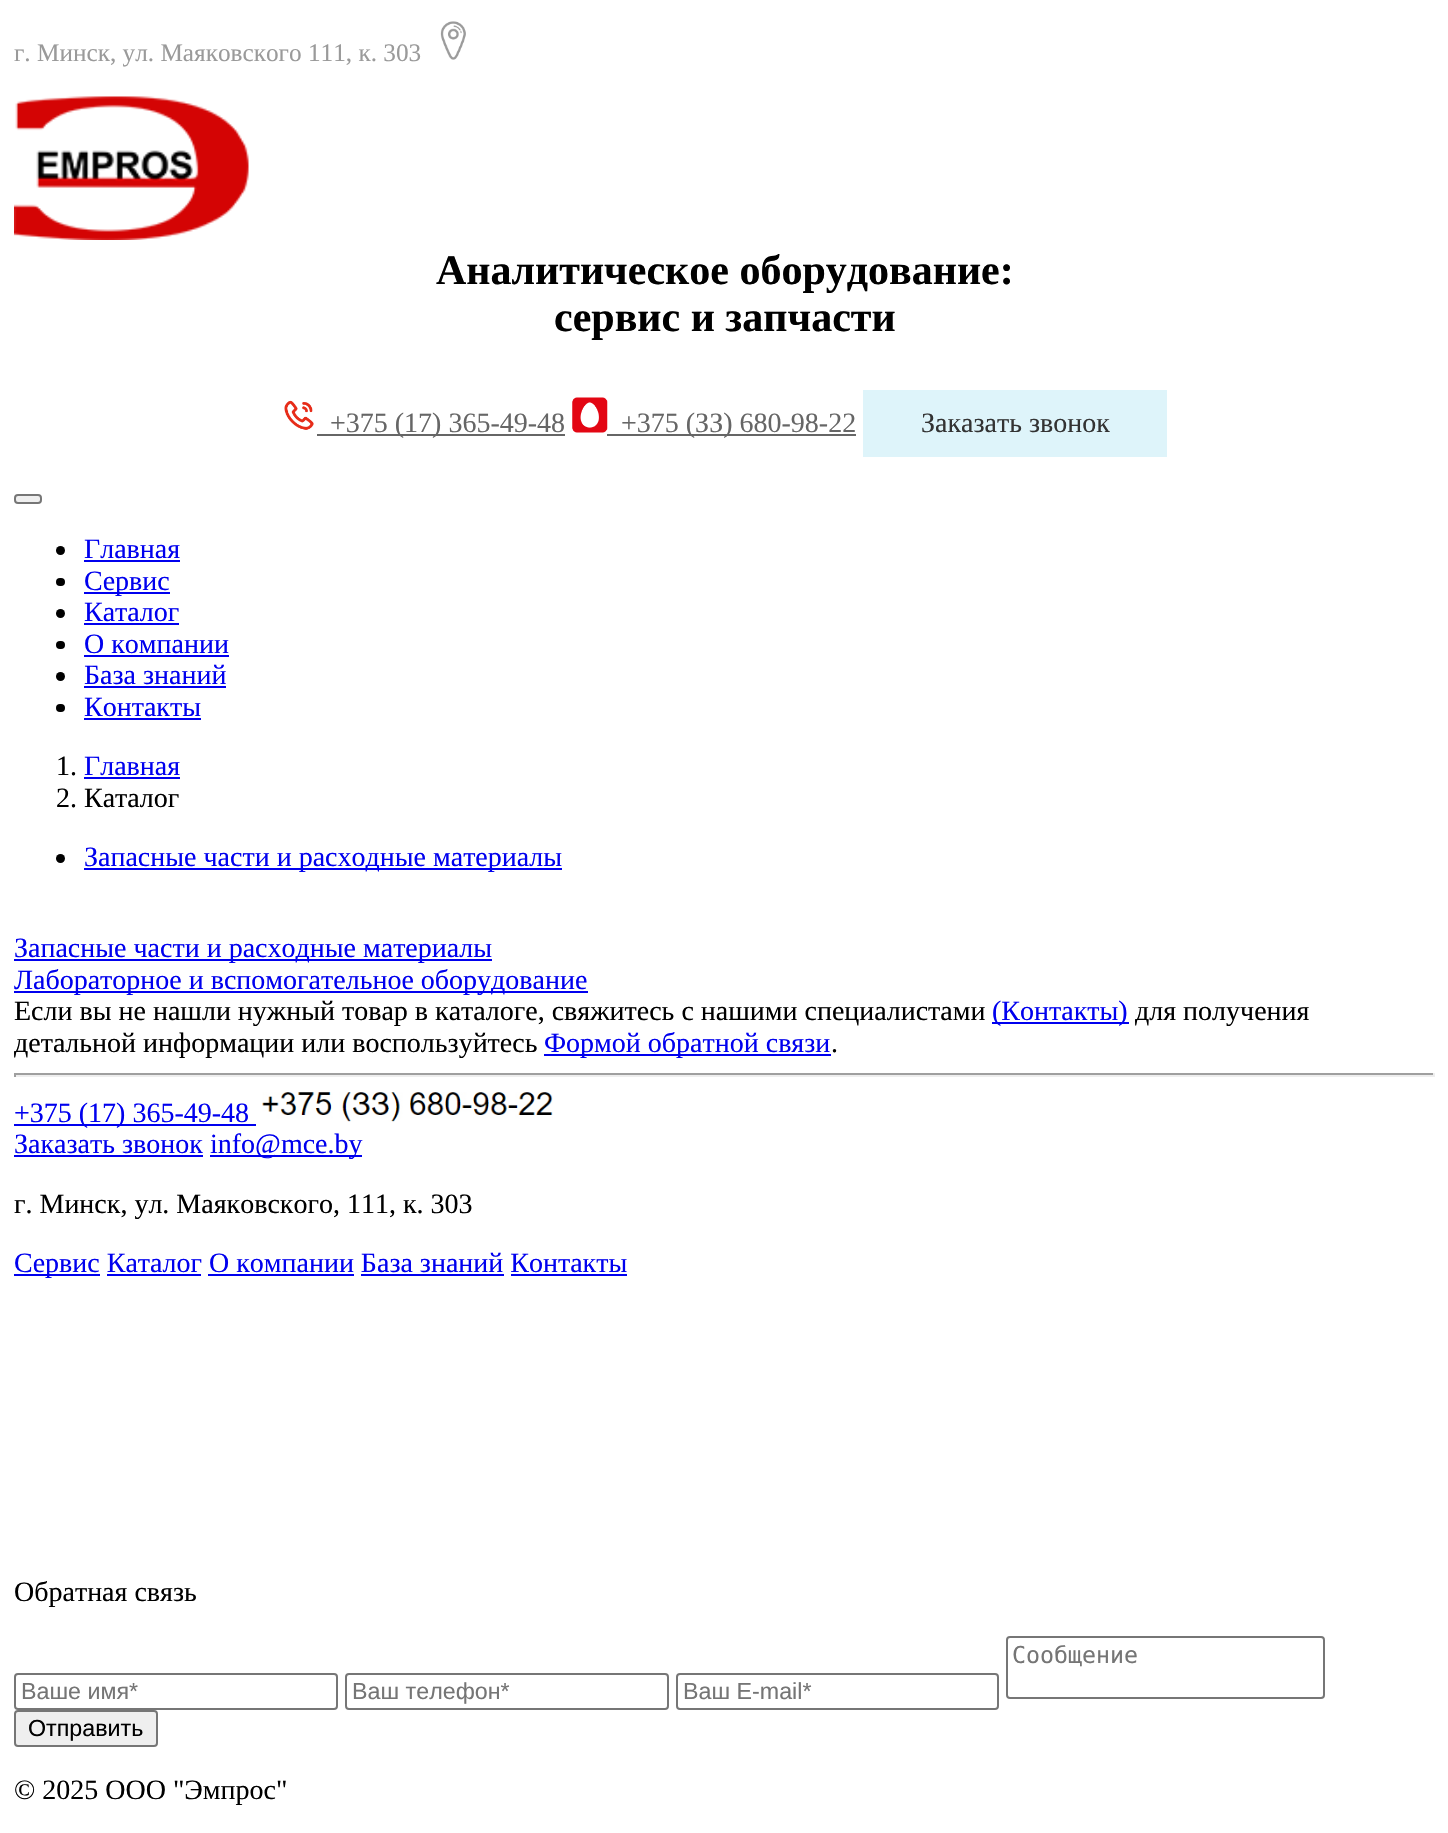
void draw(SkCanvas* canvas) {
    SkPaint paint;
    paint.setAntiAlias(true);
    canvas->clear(0xFFFFFFFF);
    SkFont font1(fontMgr->matchFamilyStyle("Liberation Serif", SkFontStyle::Normal()), 25.25f);
    font1.setSubpixel(true);
    paint.setColor(0xFF9A9A9A);
    canvas->drawString("г. Минск, ул. Маяковского 111, к. 303", 14, 61, font1, paint);
    canvas->drawImageRect(SkImages::DeferredFromEncodedData(SkData::MakeFromFileName("img1.png")), SkRect::MakeXYWH(440, 21, 26, 39), SkSamplingOptions());
    canvas->drawImageRect(SkImages::DeferredFromEncodedData(SkData::MakeFromFileName("img2.png")), SkRect::MakeXYWH(14, 96, 235, 144), SkSamplingOptions());
    SkFont font2(fontMgr->matchFamilyStyle("Liberation Serif", SkFontStyle::Bold()), 42);
    font2.setSubpixel(true);
    paint.setColor(0xFF000000);
    canvas->drawString("Аналитическое оборудование:", 436, 284, font2, paint);
    canvas->drawString("сервис и запчасти", 554, 331, font2, paint);
    canvas->drawImageRect(SkImages::DeferredFromEncodedData(SkData::MakeFromFileName("img3.png")), SkRect::MakeXYWH(284, 400, 30, 30), SkSamplingOptions());
    paint.setColor(0xFF666666);
    canvas->drawRect(SkRect::MakeXYWH(317, 434, 248, 2), paint);
    SkFont font3(fontMgr->matchFamilyStyle("Liberation Serif", SkFontStyle::Normal()), 28);
    font3.setSubpixel(true);
    canvas->drawString("+375 (17) 365-49-48", 330, 432, font3, paint);
    canvas->drawImageRect(SkImages::DeferredFromEncodedData(SkData::MakeFromFileName("img4.png")), SkRect::MakeXYWH(572, 397, 36, 36), SkSamplingOptions());
    canvas->drawRect(SkRect::MakeXYWH(607, 434, 249, 2), paint);
    canvas->drawString("+375 (ЗЗ) 680-98-22", 621, 432, font3, paint);
    paint.setColor(0xFFDEF4FA);
    canvas->drawRect(SkRect::MakeXYWH(863, 390, 304, 67), paint);
    paint.setColor(0xFF333333);
    canvas->drawString("Заказать звонок", 921, 432, font3, paint);
    paint.setColor(0xFFEFEFEF);
    canvas->drawRoundRect(SkRect::MakeXYWH(15, 495, 26, 8), 3, 3, paint);
    paint.setStyle(SkPaint::kStroke_Style);
    paint.setStrokeWidth(2);
    paint.setColor(0xFF767676);
    canvas->drawRoundRect(SkRect::MakeXYWH(15, 495, 26, 8), 3, 3, paint);
    paint.setStyle(SkPaint::kFill_Style);
    paint.setColor(0xFF000000);
    canvas->drawCircle(60.5f, 550.5f, 4.5f, paint);
    paint.setColor(0xFF0000EE);
    canvas->drawString("Главная", 84, 558, font3, paint);
    canvas->drawRect(SkRect::MakeXYWH(84, 560, 96, 2), paint);
    paint.setColor(0xFF000000);
    canvas->drawRoundRect(SkRect::MakeXYWH(56, 578, 9, 8), 4, 4, paint);
    paint.setColor(0xFF0000EE);
    canvas->drawRect(SkRect::MakeXYWH(84, 592, 86, 2), paint);
    canvas->drawString("Сервис", 84, 590, font3, paint);
    paint.setColor(0xFF000000);
    canvas->drawCircle(60.5f, 613.5f, 4.5f, paint);
    paint.setColor(0xFF0000EE);
    canvas->drawString("Каталог", 84, 621, font3, paint);
    canvas->drawRect(SkRect::MakeXYWH(84, 623, 95, 2), paint);
    paint.setColor(0xFF000000);
    canvas->drawRoundRect(SkRect::MakeXYWH(56, 641, 9, 8), 4, 4, paint);
    paint.setColor(0xFF0000EE);
    canvas->drawString("О компании", 84, 653, font3, paint);
    canvas->drawRect(SkRect::MakeXYWH(84, 655, 145, 2), paint);
    paint.setColor(0xFF000000);
    canvas->drawCircle(60.5f, 676.5f, 4.5f, paint);
    paint.setColor(0xFF0000EE);
    canvas->drawString("База знаний", 84, 684, font3, paint);
    canvas->drawRect(SkRect::MakeXYWH(84, 686, 142, 2), paint);
    paint.setColor(0xFF000000);
    canvas->drawRoundRect(SkRect::MakeXYWH(56, 704, 9, 8), 4, 4, paint);
    paint.setColor(0xFF0000EE);
    canvas->drawString("Контакты", 84, 716, font3, paint);
    canvas->drawRect(SkRect::MakeXYWH(84, 718, 117, 2), paint);
    paint.setColor(0xFF000000);
    canvas->drawString("1.", 56, 775, font3, paint);
    paint.setColor(0xFF0000EE);
    canvas->drawString("Главная", 84, 775, font3, paint);
    canvas->drawRect(SkRect::MakeXYWH(84, 777, 96, 2), paint);
    paint.setColor(0xFF000000);
    canvas->drawString("2. Каталог", 56, 807, font3, paint);
    canvas->drawCircle(60.5f, 858.5f, 4.5f, paint);
    paint.setColor(0xFF0000EE);
    canvas->drawRect(SkRect::MakeXYWH(84, 868, 478, 2), paint);
    canvas->drawString("Запасные части и расходные материалы", 84, 866, font3, paint);
    canvas->drawRect(SkRect::MakeXYWH(14, 959, 478, 2), paint);
    canvas->drawString("Запасные части и расходные материалы", 14, 957, font3, paint);
    canvas->drawRect(SkRect::MakeXYWH(14, 991, 574, 2), paint);
    canvas->drawString("Лабораторное и вспомогательное оборудование", 14, 989, font3, paint);
    paint.setColor(0xFF000000);
    canvas->drawString("Если вы не нашли нужный товар в каталоге, свяжитесь с нашими специалистами", 14, 1020, font3, paint);
    paint.setColor(0xFF0000EE);
    canvas->drawRect(SkRect::MakeXYWH(992, 1022, 137, 2), paint);
    canvas->drawString("(Контакты)", 992, 1020, font3, paint);
    paint.setColor(0xFF000000);
    canvas->drawString("для получения", 1135, 1020, font3, paint);
    canvas->drawString("детальной информации или воспользуйтесь", 14, 1052, font3, paint);
    paint.setColor(0xFF0000EE);
    canvas->drawRect(SkRect::MakeXYWH(544, 1054, 287, 2), paint);
    canvas->drawString("Формой обратной связи", 544, 1052, font3, paint);
    paint.setColor(0xFF000000);
    canvas->drawString(".", 831, 1052, font3, paint);
    paint.setColor(0xFF9F9F9F);
    canvas->drawRect(SkRect::MakeXYWH(14, 1073, 1421, 2), paint);
    paint.setColor(0xFFEEEEEE);
    canvas->drawRect(SkRect::MakeXYWH(1433, 1073, 2, 4), paint);
    canvas->drawRect(SkRect::MakeXYWH(14, 1075, 1421, 2), paint);
    paint.setColor(0xFF9F9F9F);
    canvas->drawRect(SkRect::MakeXYWH(14, 1073, 2, 4), paint);
    paint.setColor(0xFF0000EE);
    canvas->drawRect(SkRect::MakeXYWH(14, 1124, 242, 2), paint);
    canvas->drawString("+375 (17) 365-49-48", 14, 1122, font3, paint);
    canvas->drawImageRect(SkImages::DeferredFromEncodedData(SkData::MakeFromFileName("img5.png")), SkRect::MakeXYWH(262, 1092, 291, 30), SkSamplingOptions());
    canvas->drawString("Заказать звонок", 14, 1153, font3, paint);
    canvas->drawRect(SkRect::MakeXYWH(14, 1155, 189, 2), paint);
    canvas->drawRect(SkRect::MakeXYWH(210, 1155, 152, 2), paint);
    canvas->drawString("info@mce.by", 210, 1153, font3, paint);
    paint.setColor(0xFF000000);
    canvas->drawString("г. Минск, ул. Маяковского, 111, к. 303", 14, 1213, font3, paint);
    paint.setColor(0xFF0000EE);
    canvas->drawRect(SkRect::MakeXYWH(14, 1274, 86, 2), paint);
    canvas->drawString("Сервис Каталог О компании База знаний Контакты", 14, 1272, font3, paint);
    canvas->drawRect(SkRect::MakeXYWH(107, 1274, 94, 2), paint);
    canvas->drawRect(SkRect::MakeXYWH(208, 1274, 146, 2), paint);
    canvas->drawRect(SkRect::MakeXYWH(361, 1274, 143, 2), paint);
    canvas->drawRect(SkRect::MakeXYWH(511, 1274, 116, 2), paint);
    paint.setColor(0xFF000000);
    canvas->drawString("Обратная связь", 14, 1601, font3, paint);
    paint.setStyle(SkPaint::kStroke_Style);
    paint.setColor(0xFF767676);
    canvas->drawRoundRect(SkRect::MakeXYWH(1007, 1637, 317, 61), 3, 3, paint);
    SkFont font4(fontMgr->matchFamilyStyle("DejaVu Sans Mono", SkFontStyle::Normal()), 23.25f);
    font4.setSubpixel(true);
    paint.setStyle(SkPaint::kFill_Style);
    paint.setColor(0xFF757575);
    canvas->drawString("Сообщение", 1012, 1663, font4, paint);
    paint.setStyle(SkPaint::kStroke_Style);
    paint.setColor(0xFF767676);
    canvas->drawRoundRect(SkRect::MakeXYWH(15, 1674, 322, 35), 3, 3, paint);
    SkFont font5(fontMgr->matchFamilyStyle("Liberation Sans", SkFontStyle::Normal()), 23.25f);
    font5.setSubpixel(true);
    paint.setStyle(SkPaint::kFill_Style);
    paint.setColor(0xFF757575);
    canvas->drawString("Ваше имя*", 21, 1699, font5, paint);
    paint.setStyle(SkPaint::kStroke_Style);
    paint.setColor(0xFF767676);
    canvas->drawRoundRect(SkRect::MakeXYWH(346, 1674, 322, 35), 3, 3, paint);
    paint.setStyle(SkPaint::kFill_Style);
    paint.setColor(0xFF757575);
    canvas->drawString("Ваш телефон*", 352, 1699, font5, paint);
    paint.setStyle(SkPaint::kStroke_Style);
    paint.setColor(0xFF767676);
    canvas->drawRoundRect(SkRect::MakeXYWH(677, 1674, 321, 35), 3, 3, paint);
    paint.setStyle(SkPaint::kFill_Style);
    paint.setColor(0xFF757575);
    canvas->drawString("Ваш E-mail*", 683, 1699, font5, paint);
    paint.setColor(0xFFEFEFEF);
    canvas->drawRoundRect(SkRect::MakeXYWH(15, 1711, 142, 35), 3, 3, paint);
    paint.setStyle(SkPaint::kStroke_Style);
    paint.setColor(0xFF767676);
    canvas->drawRoundRect(SkRect::MakeXYWH(15, 1711, 142, 35), 3, 3, paint);
    paint.setStyle(SkPaint::kFill_Style);
    paint.setColor(0xFF000000);
    canvas->drawString("Отправить", 28, 1736, font5, paint);
    canvas->drawString("© 2025 ООО \"Эмпрос\"", 14, 1799, font3, paint);
}
